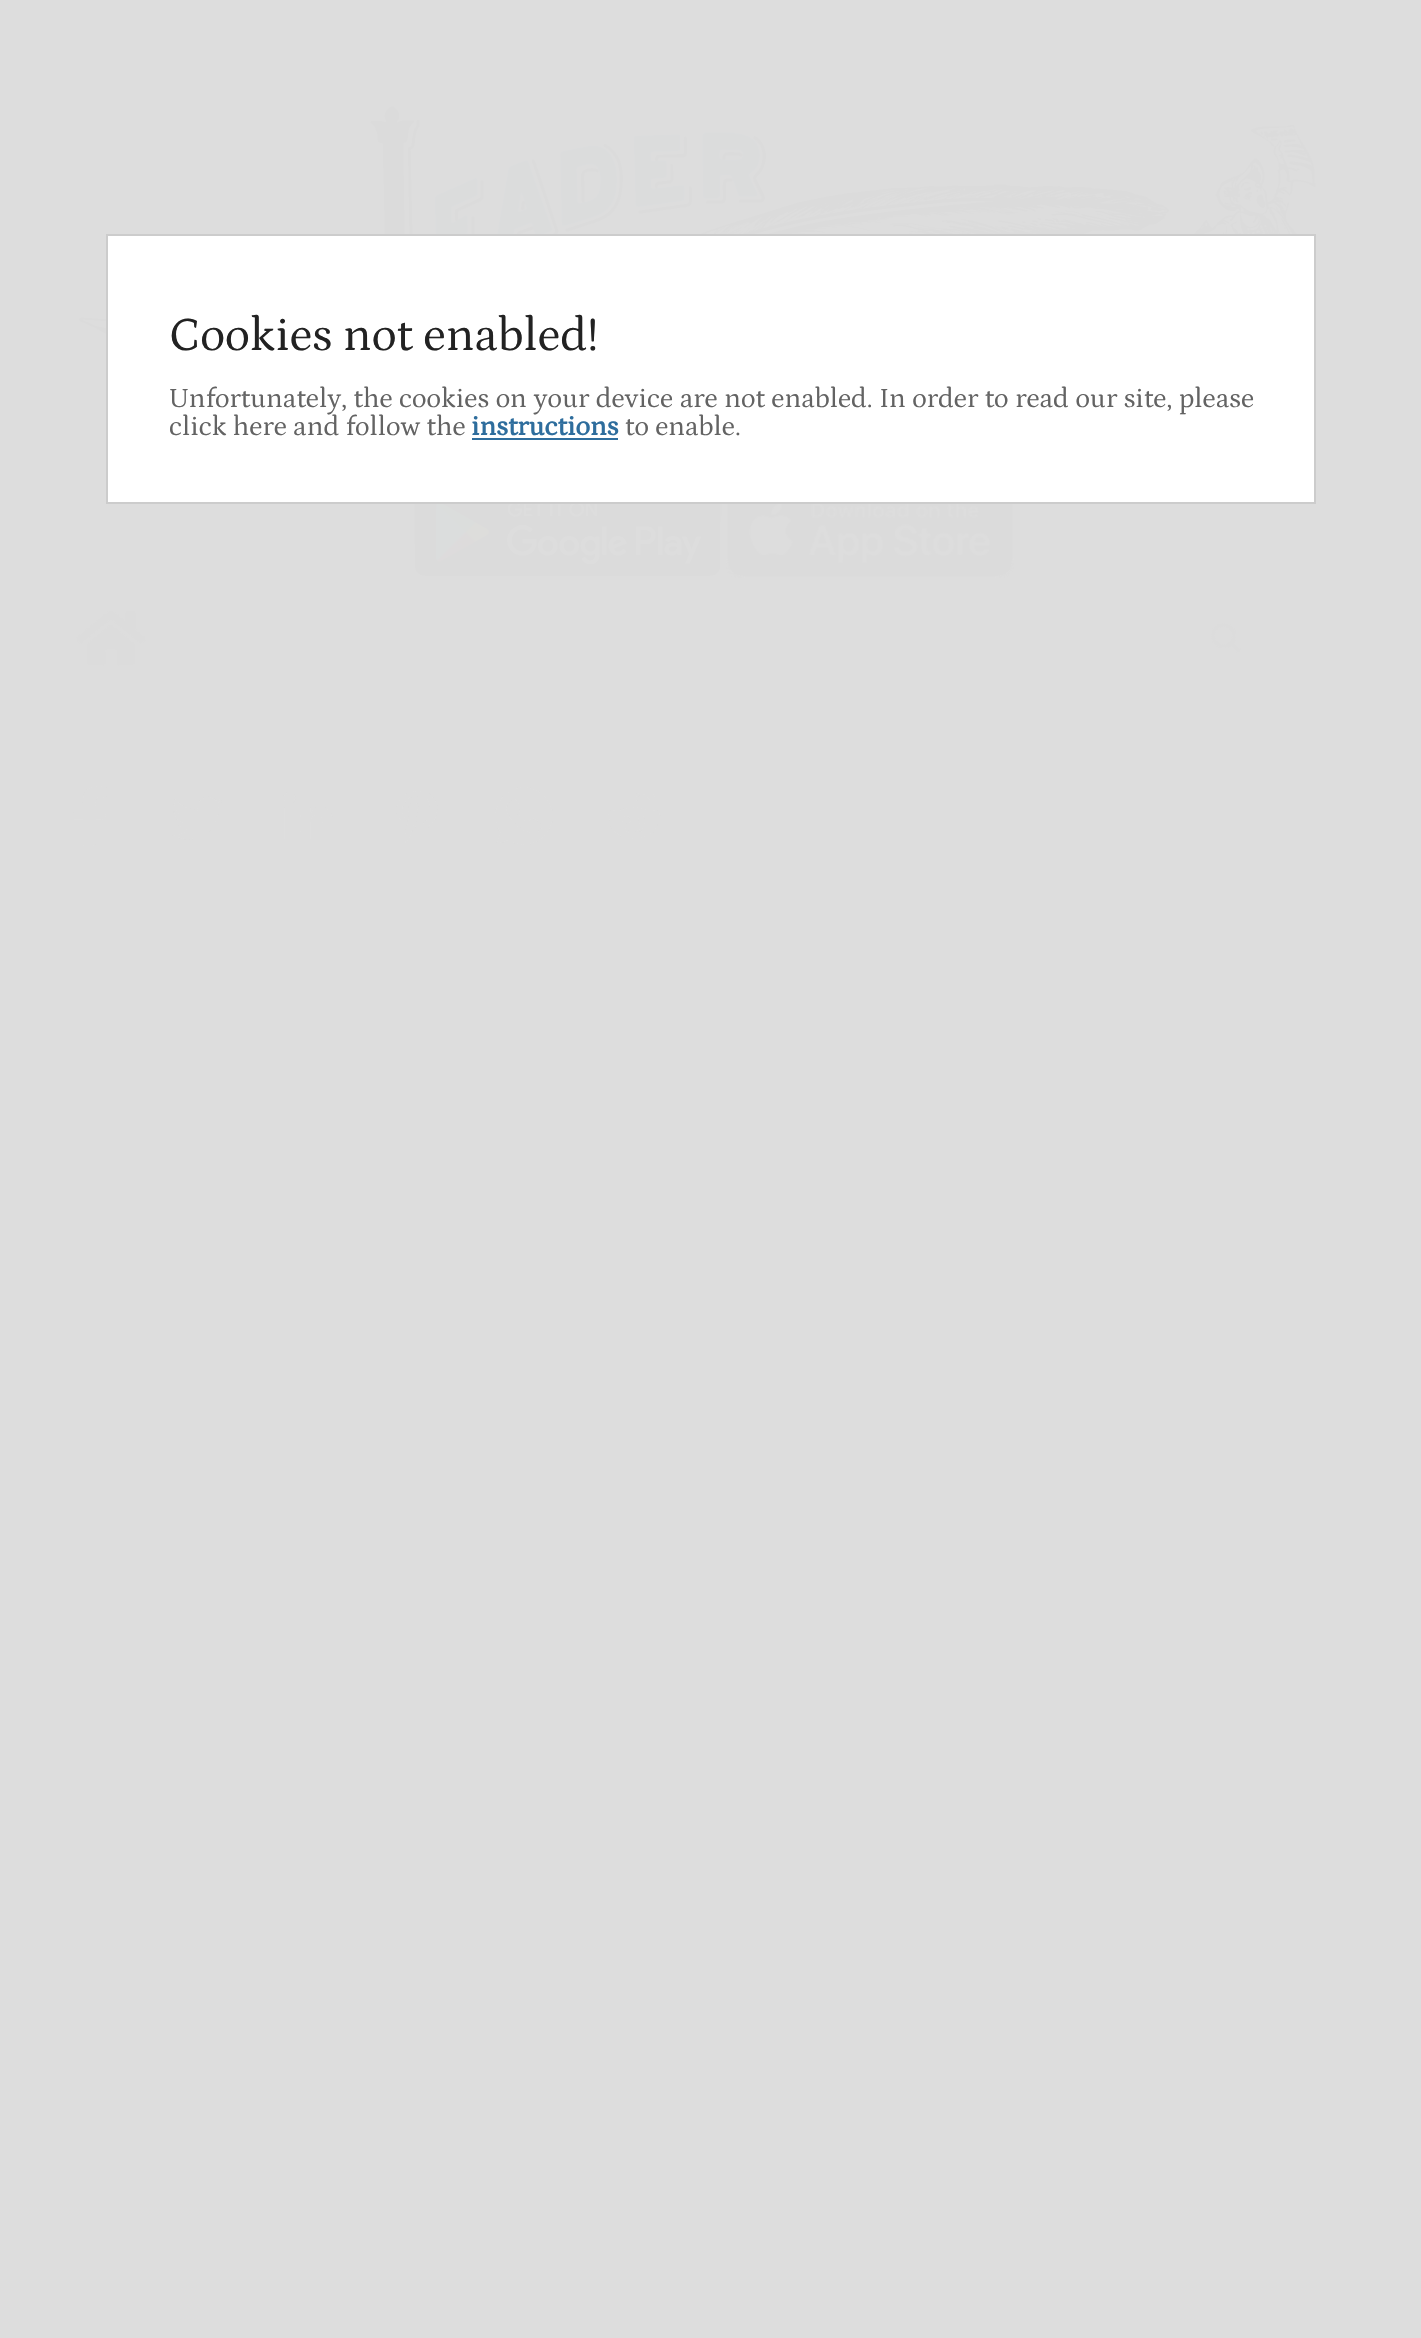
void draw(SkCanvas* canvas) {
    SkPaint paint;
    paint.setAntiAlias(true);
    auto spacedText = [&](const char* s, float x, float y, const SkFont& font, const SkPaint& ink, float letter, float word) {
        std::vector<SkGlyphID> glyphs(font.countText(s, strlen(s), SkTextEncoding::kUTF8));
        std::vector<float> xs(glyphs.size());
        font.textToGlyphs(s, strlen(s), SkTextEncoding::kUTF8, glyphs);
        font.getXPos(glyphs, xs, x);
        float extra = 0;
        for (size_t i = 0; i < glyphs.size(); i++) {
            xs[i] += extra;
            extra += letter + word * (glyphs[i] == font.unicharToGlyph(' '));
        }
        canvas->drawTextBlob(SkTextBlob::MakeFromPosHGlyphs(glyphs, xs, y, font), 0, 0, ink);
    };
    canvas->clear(0xFFDDDDDD);
    canvas->drawImageRect(SkImages::DeferredFromEncodedData(SkData::MakeFromFileName("img1.png")), SkRect::MakeXYWH(79, 106, 1238, 261), SkSamplingOptions());
    canvas->drawImageRect(SkImages::DeferredFromEncodedData(SkData::MakeFromFileName("img2.png")), SkRect::MakeXYWH(413, 504, 310, 73), SkSamplingOptions());
    canvas->drawImageRect(SkImages::DeferredFromEncodedData(SkData::MakeFromFileName("img3.png")), SkRect::MakeXYWH(726, 504, 288, 74), SkSamplingOptions());
    canvas->drawImageRect(SkImages::DeferredFromEncodedData(SkData::MakeFromFileName("img4.png")), SkRect::MakeXYWH(76, 610, 70, 56), SkSamplingOptions());
    canvas->drawImageRect(SkImages::DeferredFromEncodedData(SkData::MakeFromFileName("img5.png")), SkRect::MakeXYWH(1211, 623, 30, 30), SkSamplingOptions());
    canvas->drawImageRect(SkImages::DeferredFromEncodedData(SkData::MakeFromFileName("img6.png")), SkRect::MakeXYWH(73, 786, 34, 60), SkSamplingOptions());
    canvas->drawImageRect(SkImages::DeferredFromEncodedData(SkData::MakeFromFileName("img7.png")), SkRect::MakeXYWH(172, 796, 52, 44), SkSamplingOptions());
    canvas->drawImageRect(SkImages::DeferredFromEncodedData(SkData::MakeFromFileName("img8.png")), SkRect::MakeXYWH(283, 792, 50, 48), SkSamplingOptions());
    canvas->drawImageRect(SkImages::DeferredFromEncodedData(SkData::MakeFromFileName("img9.png")), SkRect::MakeXYWH(396, 790, 42, 54), SkSamplingOptions());
    canvas->drawImageRect(SkImages::DeferredFromEncodedData(SkData::MakeFromFileName("img10.png")), SkRect::MakeXYWH(495, 787, 58, 58), SkSamplingOptions());
    canvas->drawImageRect(SkImages::DeferredFromEncodedData(SkData::MakeFromFileName("img11.png")), SkRect::MakeXYWH(607, 792, 54, 47), SkSamplingOptions());
    paint.setColor(0xFFFFFFFF);
    canvas->drawRect(SkRect::MakeXYWH(107, 235, 1208, 268), paint);
    paint.setStyle(SkPaint::kStroke_Style);
    paint.setStrokeWidth(2);
    paint.setColor(0xFFCCCCCC);
    canvas->drawRect(SkRect::MakeXYWH(107, 235, 1208, 268), paint);
    SkFont font1(fontMgr->matchFamilyStyle("Petrona", SkFontStyle::Normal()), 48);
    font1.setSubpixel(true);
    paint.setStyle(SkPaint::kFill_Style);
    paint.setColor(0xFF222222);
    canvas->drawString("Cookies not enabled!", 169, 350, font1, paint);
    SkFont font2(fontMgr->matchFamilyStyle("Petrona", SkFontStyle::Normal()), 28);
    font2.setSubpixel(true);
    paint.setColor(0xFF636363);
    spacedText("Unfortunately, the cookies on your device are not enabled. In order to read our site, please", 169, 407, font2, paint, 0, 0.25f);
    canvas->drawString("click here and follow the", 169, 435, font2, paint);
    SkFont font3(fontMgr->matchFamilyStyle("Petrona", SkFontStyle::Bold()), 28);
    font3.setSubpixel(true);
    paint.setColor(0xFF2E6D9D);
    canvas->drawString("instructions", 471, 435, font3, paint);
    canvas->drawRect(SkRect::MakeXYWH(472, 438, 146, 2), paint);
    paint.setColor(0xFF636363);
    canvas->drawString("to enable.", 625, 435, font2, paint);
}
